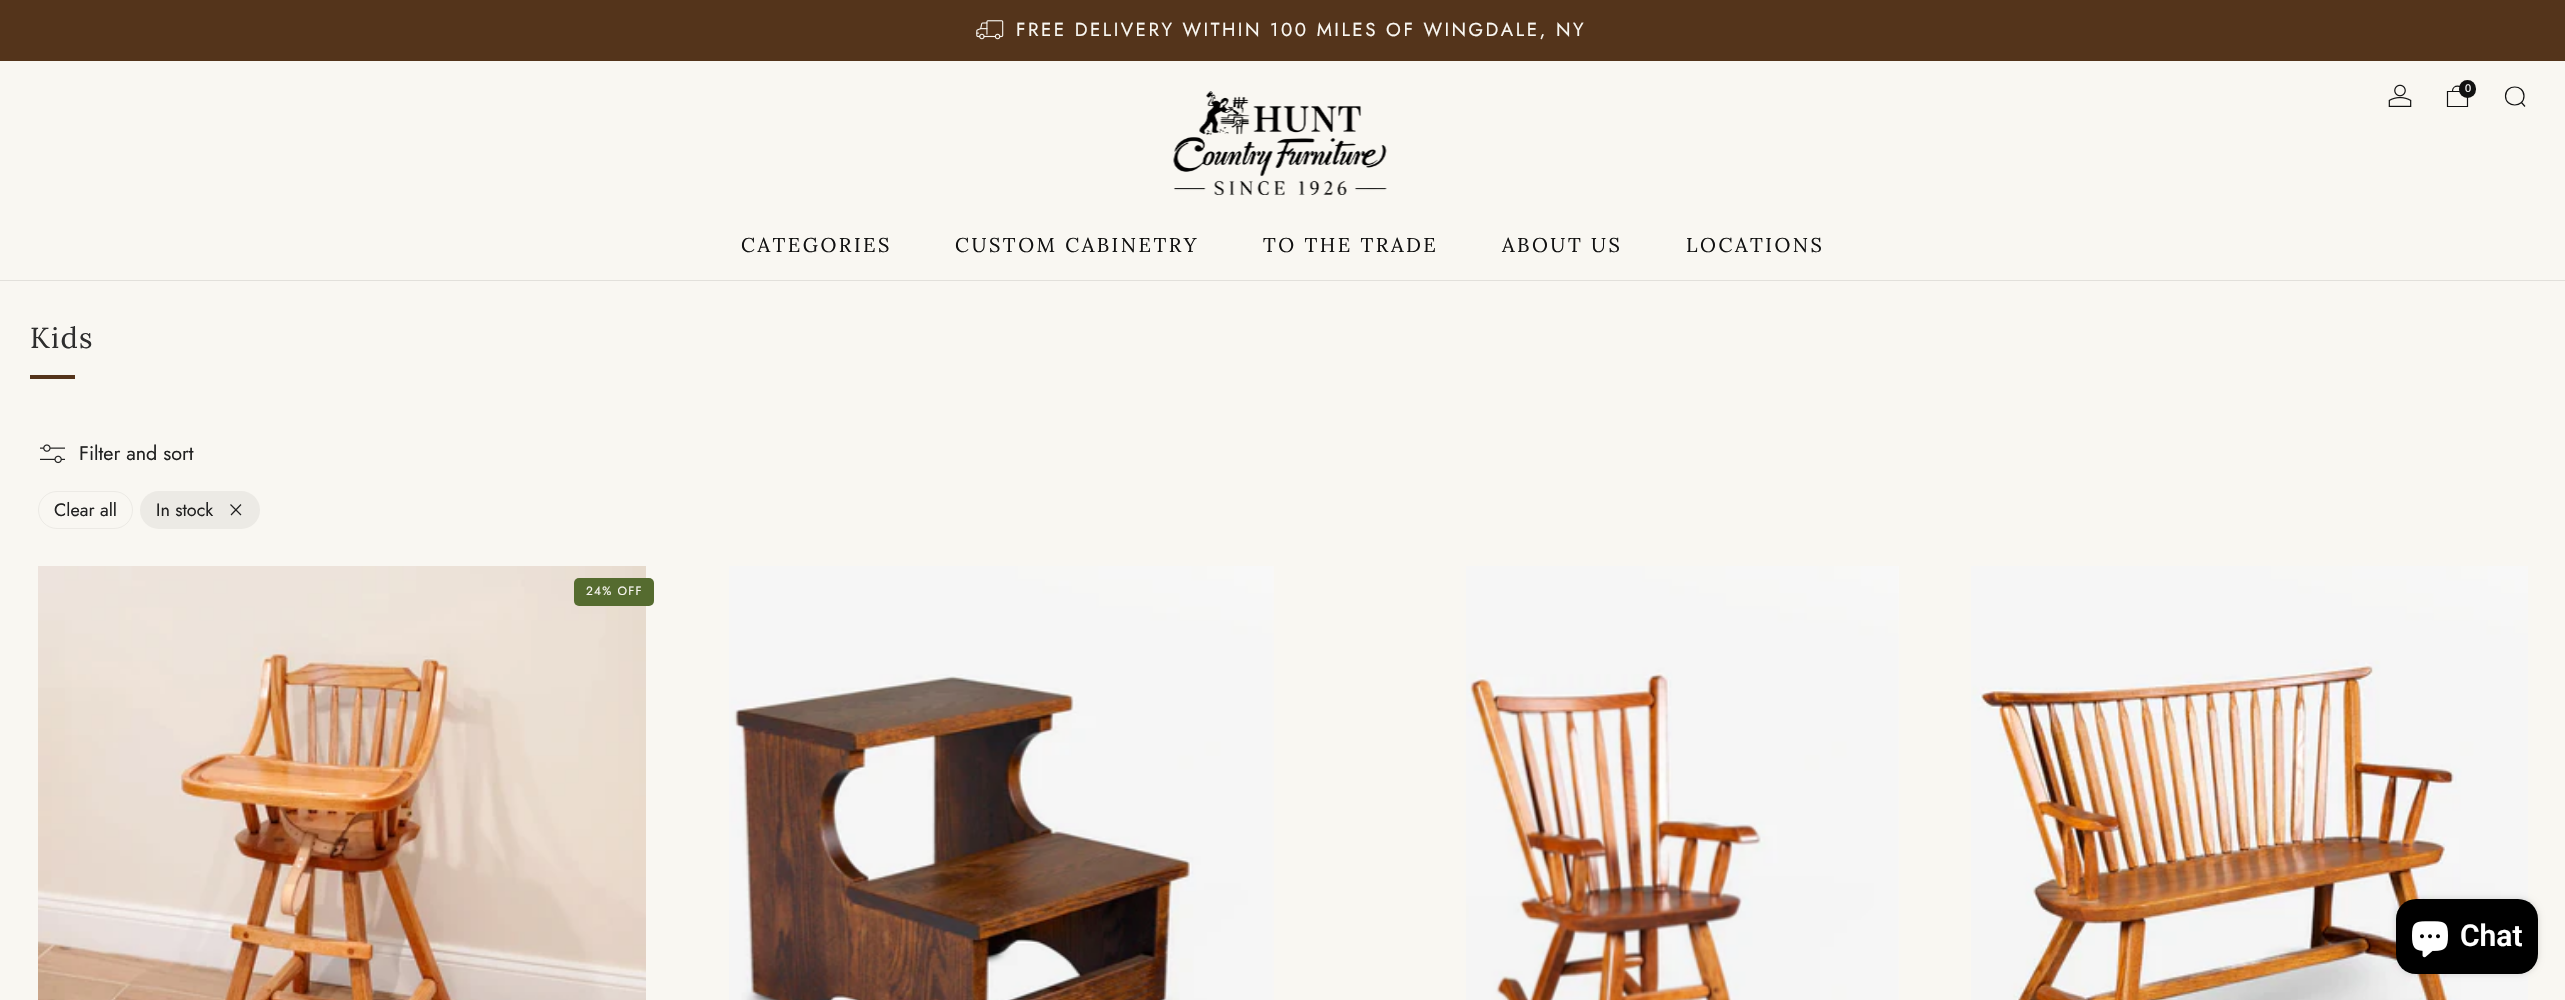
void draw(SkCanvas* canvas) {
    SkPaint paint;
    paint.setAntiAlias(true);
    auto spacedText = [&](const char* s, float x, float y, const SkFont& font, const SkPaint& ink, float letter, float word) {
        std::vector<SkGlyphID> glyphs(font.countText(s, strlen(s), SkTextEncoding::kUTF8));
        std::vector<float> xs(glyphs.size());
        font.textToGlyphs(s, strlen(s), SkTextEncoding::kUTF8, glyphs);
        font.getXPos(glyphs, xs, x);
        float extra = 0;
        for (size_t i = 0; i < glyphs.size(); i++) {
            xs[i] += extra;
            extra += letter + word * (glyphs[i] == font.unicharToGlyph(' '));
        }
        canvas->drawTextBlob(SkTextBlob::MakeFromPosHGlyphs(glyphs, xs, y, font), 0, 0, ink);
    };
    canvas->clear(0xFFF9F7F2);
    paint.setColor(0xFF54341B);
    canvas->drawRect(SkRect::MakeXYWH(0, 0, 2565, 61), paint);
    canvas->drawImageRect(SkImages::DeferredFromEncodedData(SkData::MakeFromFileName("img1.png")), SkRect::MakeXYWH(976, 20, 28, 20), SkSamplingOptions());
    SkFont font1(fontMgr->matchFamilyStyle("Jost", SkFontStyle::Normal()), 18.75f);
    font1.setSubpixel(true);
    paint.setColor(0xFFF9F7F2);
    spacedText("FREE DELIVERY WITHIN 100 MILES OF WINGDALE, NY", 1016, 36, font1, paint, 2.5f, 0);
    paint.setColor(0xFFE2E0DB);
    canvas->drawRect(SkRect::MakeXYWH(0, 280, 2565, 1), paint);
    canvas->drawImageRect(SkImages::DeferredFromEncodedData(SkData::MakeFromFileName("img2.png")), SkRect::MakeXYWH(2388, 84, 24, 23), SkSamplingOptions());
    paint.setStyle(SkPaint::kStroke_Style);
    paint.setStrokeWidth(1.2f);
    paint.setColor(0xFF111111);
    canvas->drawPath(SkPathBuilder().moveTo(2462.5f, 91).cubicTo(2462.5f, 84.5f, 2452.5f, 84.5f, 2452.5f, 91).moveTo(2447.5f, 91.5f).lineTo(2467.5f, 91.5f).lineTo(2467.5f, 106.5f).lineTo(2447.5f, 106.5f).close().detach(), paint);
    paint.setStyle(SkPaint::kFill_Style);
    canvas->drawRoundRect(SkRect::MakeXYWH(2459, 80, 17, 18), 8.5f, 8.5f, paint);
    SkFont font2(fontMgr->matchFamilyStyle("Liberation Sans", SkFontStyle::Normal()), 11);
    font2.setSubpixel(true);
    paint.setColor(0xFFFFFFFF);
    canvas->drawString("0", 2465, 92, font2, paint);
    paint.setStyle(SkPaint::kStroke_Style);
    paint.setColor(0xFF111111);
    canvas->drawPath(SkPathBuilder().moveTo(2521.5f, 102.5f).lineTo(2525, 106.5f).moveTo(2524, 96).cubicTo(2524, 108, 2505.5f, 108, 2505.5f, 96).cubicTo(2505.5f, 84, 2524, 84, 2524, 96).close().detach(), paint);
    SkFont font3(fontMgr->matchFamilyStyle("Lora", SkFontStyle::Normal()), 20);
    font3.setSubpixel(true);
    paint.setStyle(SkPaint::kFill_Style);
    spacedText("CATEGORIES", 741, 252, font3, paint, 2.5f, 0);
    spacedText("CUSTOM CABINETRY", 955, 252, font3, paint, 2.5f, 0);
    spacedText("TO THE TRADE", 1263, 252, font3, paint, 2.5f, 0);
    spacedText("ABOUT US", 1502, 252, font3, paint, 2.5f, 0);
    spacedText("LOCATIONS", 1686, 252, font3, paint, 2.5f, 0);
    canvas->drawImageRect(SkImages::DeferredFromEncodedData(SkData::MakeFromFileName("img3.png")), SkRect::MakeXYWH(1173, 91, 214, 104), SkSamplingOptions());
    SkFont font4(fontMgr->matchFamilyStyle("Lora", SkFontStyle::Normal()), 29);
    font4.setSubpixel(true);
    paint.setColor(0xFF2E2E2E);
    spacedText("Kids", 30, 348, font4, paint, 1.25f, 0);
    paint.setColor(0xFF54341B);
    canvas->drawRect(SkRect::MakeXYWH(30, 375, 45, 4), paint);
    canvas->drawImageRect(SkImages::DeferredFromEncodedData(SkData::MakeFromFileName("img4.png")), SkRect::MakeXYWH(40, 444, 25, 20), SkSamplingOptions());
    SkFont font5(fontMgr->matchFamilyStyle("Jost", SkFontStyle::Normal()), 19.75f);
    font5.setSubpixel(true);
    paint.setColor(0xFF212121);
    canvas->drawString("Filter and sort", 79, 460, font5, paint);
    paint.setStyle(SkPaint::kStroke_Style);
    paint.setStrokeWidth(1);
    paint.setColor(0xFFECEAE5);
    canvas->drawRoundRect(SkRect::MakeXYWH(38.5f, 491.5f, 94, 37), 18.5f, 18.5f, paint);
    SkFont font6(fontMgr->matchFamilyStyle("Jost", SkFontStyle::Normal()), 18);
    font6.setSubpixel(true);
    paint.setStyle(SkPaint::kFill_Style);
    paint.setColor(0xFF212121);
    canvas->drawString("Clear all", 54, 516, font6, paint);
    paint.setColor(0xFFECEAE5);
    canvas->drawRoundRect(SkRect::MakeXYWH(140, 491, 120, 38), 19, 19, paint);
    paint.setColor(0xFF212121);
    canvas->drawString("In stock", 156, 516, font6, paint);
    paint.setStyle(SkPaint::kStroke_Style);
    paint.setStrokeWidth(1.2f);
    canvas->drawPath(SkPathBuilder().moveTo(231, 515).lineTo(241, 504.5f).moveTo(230.5f, 504.5f).lineTo(241, 515).detach(), paint);
    canvas->drawImageRect(SkImages::DeferredFromEncodedData(SkData::MakeFromFileName("img5.png")), SkRect::MakeXYWH(38, 566, 608, 434), SkSamplingOptions());
    paint.setStyle(SkPaint::kFill_Style);
    paint.setColor(0xFF556B2F);
    canvas->drawRoundRect(SkRect::MakeXYWH(574, 578, 80, 28), 5, 5, paint);
    SkFont font7(fontMgr->matchFamilyStyle("Jost", SkFontStyle::Normal()), 12);
    font7.setSubpixel(true);
    paint.setColor(0xFFF9F7F2);
    spacedText("24% OFF", 586, 595, font7, paint, 1.25f, 0);
    canvas->drawImageRect(SkImages::DeferredFromEncodedData(SkData::MakeFromFileName("img6.png")), SkRect::MakeXYWH(729, 566, 545, 434), SkSamplingOptions());
    canvas->drawImageRect(SkImages::DeferredFromEncodedData(SkData::MakeFromFileName("img7.png")), SkRect::MakeXYWH(1466, 566, 433, 434), SkSamplingOptions());
    canvas->drawImageRect(SkImages::DeferredFromEncodedData(SkData::MakeFromFileName("img8.png")), SkRect::MakeXYWH(1971, 566, 557, 434), SkSamplingOptions());
    paint.setColor(0x26000000);
    paint.setMaskFilter(SkMaskFilter::MakeBlur(kNormal_SkBlurStyle, 3));
    canvas->drawRoundRect(SkRect::MakeXYWH(2396, 899, 142, 75), 20, 20, paint);
    paint.setMaskFilter(nullptr);
    paint.setColor(0xFF000000);
    canvas->drawRoundRect(SkRect::MakeXYWH(2396, 899, 142, 75), 20, 20, paint);
    canvas->drawImageRect(SkImages::DeferredFromEncodedData(SkData::MakeFromFileName("img9.png")), SkRect::MakeXYWH(2412, 921, 36, 37), SkSamplingOptions());
    SkFont font8(fontMgr->matchFamilyStyle("Roboto", SkFontStyle(600, SkFontStyle::kNormal_Width, SkFontStyle::kUpright_Slant)), 30);
    font8.setSubpixel(true);
    paint.setColor(0xFFFFFFFF);
    canvas->drawString("Chat", 2460, 946, font8, paint);
}
